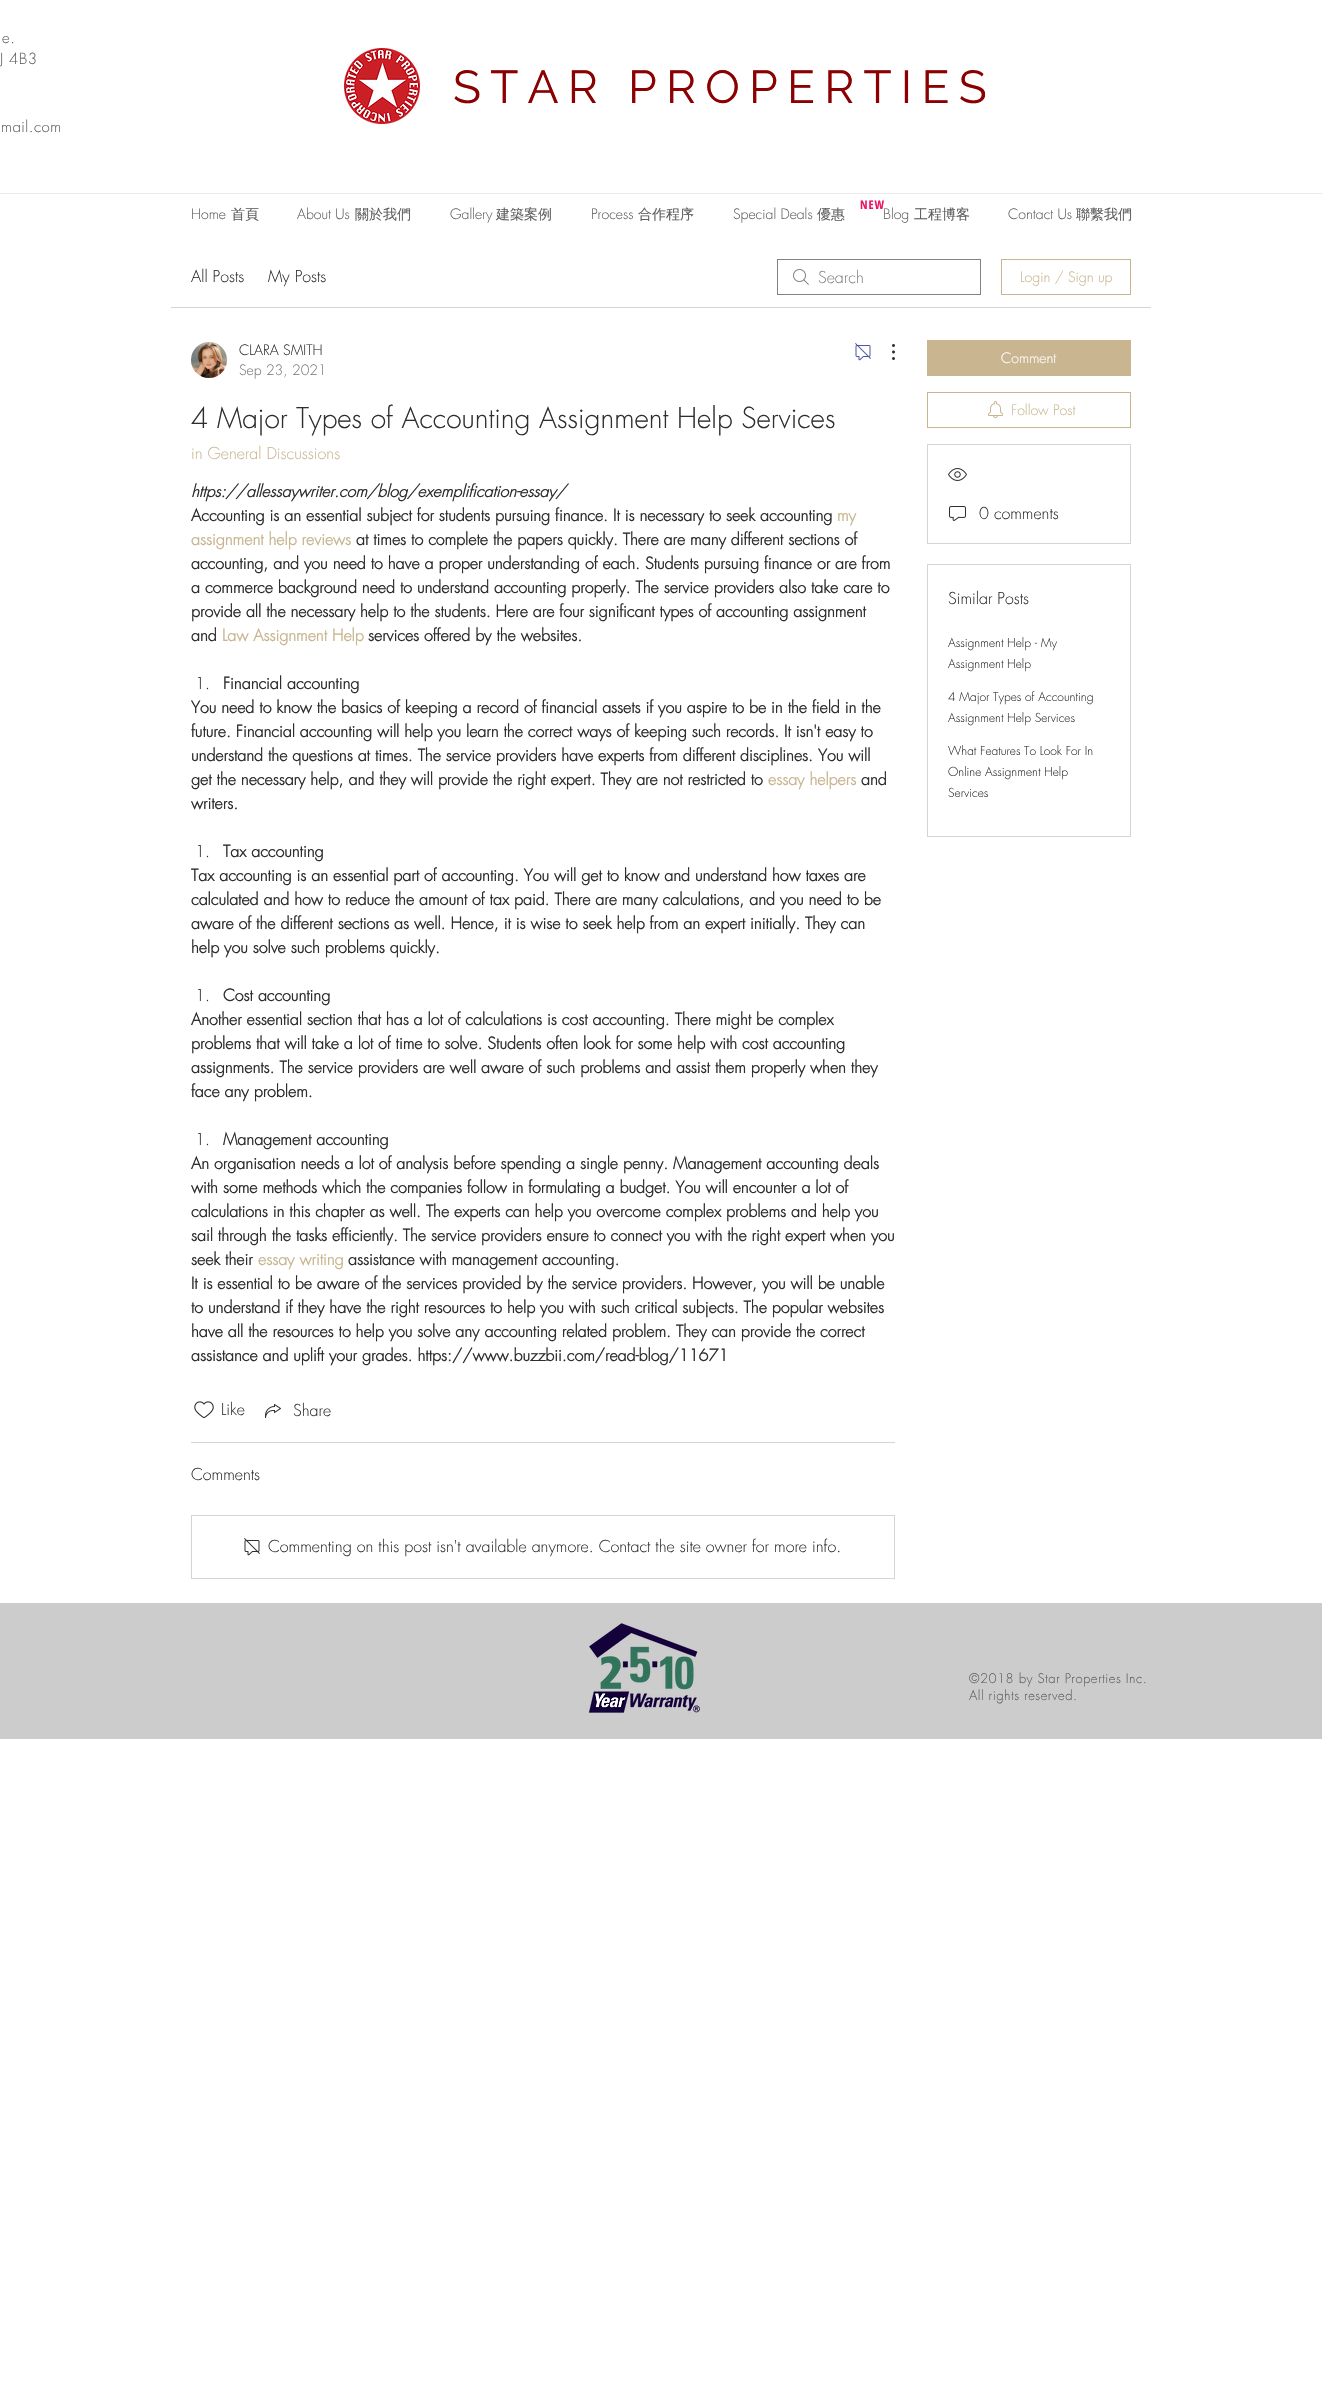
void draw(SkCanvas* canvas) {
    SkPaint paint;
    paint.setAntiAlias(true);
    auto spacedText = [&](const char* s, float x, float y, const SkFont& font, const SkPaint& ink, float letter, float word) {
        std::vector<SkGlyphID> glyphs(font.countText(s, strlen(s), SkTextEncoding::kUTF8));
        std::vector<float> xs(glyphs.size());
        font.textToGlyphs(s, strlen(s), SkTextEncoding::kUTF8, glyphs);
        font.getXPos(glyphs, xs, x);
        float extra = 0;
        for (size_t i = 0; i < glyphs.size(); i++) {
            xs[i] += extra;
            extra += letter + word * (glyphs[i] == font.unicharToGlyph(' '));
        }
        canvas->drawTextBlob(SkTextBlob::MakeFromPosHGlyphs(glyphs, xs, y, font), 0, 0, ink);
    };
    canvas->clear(0xFFFFFFFF);
    SkFont font1(fontMgr->matchFamilyStyle("futura", SkFontStyle(300, SkFontStyle::kNormal_Width, SkFontStyle::kUpright_Slant)), 15);
    font1.setSubpixel(true);
    paint.setColor(0xFF605E5E);
    spacedText("e.", 2, 43, font1, paint, 0.5f, 0);
    spacedText("J 4B3", 0, 64, font1, paint, 0.5f, 0);
    canvas->drawImageRect(SkImages::DeferredFromEncodedData(SkData::MakeFromFileName("img1.png")), SkRect::MakeXYWH(344, 48, 76, 76), SkSamplingOptions());
    SkFont font2(fontMgr->matchFamilyStyle("Raleway", SkFontStyle::Normal()), 46);
    font2.setSubpixel(true);
    paint.setColor(0xFF8B0000);
    spacedText("STAR PROPERTIES", 453, 103, font2, paint, 9.25f, 0);
    paint.setColor(0xFF605E5E);
    spacedText("mail.com", 1, 132, font1, paint, 0.5f, 0);
    paint.setColor(0xFFE9E9E9);
    canvas->drawRect(SkRect::MakeXYWH(0, 193, 1322, 1), paint);
    SkFont font3(fontMgr->matchFamilyStyle("Open Sans Condensed", SkFontStyle::Bold()), 12);
    font3.setSubpixel(true);
    paint.setColor(0xFFED1566);
    spacedText("NEW", 860, 209, font3, paint, 1, 0);
    SkFont font4(fontMgr->matchFamilyStyle("futura", SkFontStyle(300, SkFontStyle::kNormal_Width, SkFontStyle::kUpright_Slant)), 14);
    font4.setSubpixel(true);
    paint.setColor(0xFF605E5E);
    canvas->drawString("Home", 191, 219, font4, paint);
    SkFont font5(fontMgr->matchFamilyStyle("WenQuanYi Zen Hei", SkFontStyle(500, SkFontStyle::kNormal_Width, SkFontStyle::kUpright_Slant)), 14);
    font5.setSubpixel(true);
    canvas->drawString("首頁", 231, 219, font5, paint);
    canvas->drawString("About Us", 297, 219, font4, paint);
    canvas->drawString("關於我們", 355, 219, font5, paint);
    canvas->drawString("Gallery", 450, 219, font4, paint);
    canvas->drawString("建築案例", 496, 219, font5, paint);
    canvas->drawString("Process", 591, 219, font4, paint);
    canvas->drawString("合作程序", 638, 219, font5, paint);
    canvas->drawString("Special Deals", 733, 219, font4, paint);
    canvas->drawString("優惠", 817, 219, font5, paint);
    canvas->drawString("Blog", 883, 219, font4, paint);
    canvas->drawString("工程博客", 914, 219, font5, paint);
    canvas->drawString("Contact Us", 1008, 219, font4, paint);
    canvas->drawString("聯繫我們", 1076, 219, font5, paint);
    paint.setColor(0xFFD5D5D5);
    canvas->drawRect(SkRect::MakeXYWH(171, 307, 980, 1), paint);
    SkFont font6(fontMgr->matchFamilyStyle("futura", SkFontStyle(300, SkFontStyle::kNormal_Width, SkFontStyle::kUpright_Slant)), 16);
    font6.setSubpixel(true);
    paint.setColor(0xFF2F2E2E);
    canvas->drawString("All Posts", 191, 282, font6, paint);
    canvas->drawString("My Posts", 268, 282, font6, paint);
    canvas->drawImageRect(SkImages::DeferredFromEncodedData(SkData::MakeFromFileName("img2.png")), SkRect::MakeXYWH(793, 269, 16, 16), SkSamplingOptions());
    paint.setStyle(SkPaint::kStroke_Style);
    paint.setStrokeWidth(1);
    paint.setColor(0xFF828282);
    canvas->drawRect(SkRect::MakeXYWH(777.5f, 259.5f, 203, 35), paint);
    paint.setStyle(SkPaint::kFill_Style);
    canvas->drawString("Search", 818, 283, font6, paint);
    paint.setStyle(SkPaint::kStroke_Style);
    paint.setColor(0xFFC9B691);
    canvas->drawRect(SkRect::MakeXYWH(1001.5f, 259.5f, 129, 35), paint);
    paint.setStyle(SkPaint::kFill_Style);
    canvas->drawString("Login / Sign up", 1020, 282, font4, paint);
    canvas->drawImageRect(SkImages::DeferredFromEncodedData(SkData::MakeFromFileName("img3.png")), SkRect::MakeXYWH(191, 342, 36, 36), SkSamplingOptions());
    paint.setColor(0xFF2F2E2E);
    canvas->drawString("CLARA SMITH", 239, 355, font4, paint);
    paint.setColor(0xFF7A7979);
    canvas->drawString("Sep 23, 2021", 239, 375, font4, paint);
    canvas->drawImageRect(SkImages::DeferredFromEncodedData(SkData::MakeFromFileName("img4.png")), SkRect::MakeXYWH(855, 343, 16, 18), SkSamplingOptions());
    canvas->drawImageRect(SkImages::DeferredFromEncodedData(SkData::MakeFromFileName("img5.png")), SkRect::MakeXYWH(892, 344, 3, 16), SkSamplingOptions());
    SkFont font7(fontMgr->matchFamilyStyle("futura", SkFontStyle(300, SkFontStyle::kNormal_Width, SkFontStyle::kUpright_Slant)), 28);
    font7.setSubpixel(true);
    paint.setColor(0xFF2F2E2E);
    canvas->drawString("4 Major Types of Accounting Assignment Help Services", 191, 428, font7, paint);
    paint.setColor(0xFFC9B691);
    canvas->drawString("in General Discussions", 191, 459, font6, paint);
    SkFont font8(fontMgr->matchFamilyStyle("futura", SkFontStyle::BoldItalic()), 16);
    font8.setSubpixel(true);
    paint.setColor(0xFF2F2E2E);
    canvas->drawString("https://allessaywriter.com/blog/exemplification-essay/", 191, 497, font8, paint);
    SkFont font9(fontMgr->matchFamilyStyle("futura", SkFontStyle::Bold()), 16);
    font9.setSubpixel(true);
    canvas->drawString("Accounting is an essential subject for students pursuing finance. It is necessary to seek accounting", 191, 521, font9, paint);
    paint.setColor(0xFFC9B691);
    canvas->drawString("my", 837, 521, font9, paint);
    canvas->drawString("assignment help reviews", 191, 545, font9, paint);
    paint.setColor(0xFF2F2E2E);
    canvas->drawString("at times to complete the papers quickly. There are many different sections of", 356, 545, font9, paint);
    canvas->drawString("accounting, and you need to have a proper understanding of each. Students pursuing finance or are from", 191, 569, font9, paint);
    canvas->drawString("a commerce background need to understand accounting properly. The service providers also take care to", 191, 593, font9, paint);
    canvas->drawString("provide all the necessary help to the students. Here are four significant types of accounting assignment", 191, 617, font9, paint);
    canvas->drawString("and", 191, 641, font9, paint);
    paint.setColor(0xFFC9B691);
    canvas->drawString("Law Assignment Help", 222, 641, font9, paint);
    paint.setColor(0xFF2F2E2E);
    canvas->drawString("services offered by the websites.", 368, 641, font9, paint);
    canvas->drawString("1.", 195, 689, font6, paint);
    canvas->drawString("Financial accounting", 223, 689, font9, paint);
    canvas->drawString("You need to know the basics of keeping a record of financial assets if you aspire to be in the field in the", 191, 713, font9, paint);
    canvas->drawString("future. Financial accounting will help you learn the correct ways of keeping such records. It isn't easy to", 191, 737, font9, paint);
    canvas->drawString("understand the questions at times. The service providers have experts from different disciplines. You will", 191, 761, font9, paint);
    canvas->drawString("get the necessary help, and they will provide the right expert. They are not restricted to", 191, 785, font9, paint);
    paint.setColor(0xFFC9B691);
    canvas->drawString("essay helpers", 768, 785, font9, paint);
    paint.setColor(0xFF2F2E2E);
    canvas->drawString("and", 861, 785, font9, paint);
    canvas->drawString("writers.", 191, 809, font9, paint);
    canvas->drawString("1.", 195, 857, font6, paint);
    canvas->drawString("Tax accounting", 223, 857, font9, paint);
    canvas->drawString("Tax accounting is an essential part of accounting. You will get to know and understand how taxes are", 191, 881, font9, paint);
    canvas->drawString("calculated and how to reduce the amount of tax paid. There are many calculations, and you need to be", 191, 905, font9, paint);
    canvas->drawString("aware of the different sections as well. Hence, it is wise to seek help from an expert initially. They can", 191, 929, font9, paint);
    canvas->drawString("help you solve such problems quickly.", 191, 953, font9, paint);
    canvas->drawString("1.", 195, 1001, font6, paint);
    canvas->drawString("Cost accounting", 223, 1001, font9, paint);
    canvas->drawString("Another essential section that has a lot of calculations is cost accounting. There might be complex", 191, 1025, font9, paint);
    canvas->drawString("problems that will take a lot of time to solve. Students often look for some help with cost accounting", 191, 1049, font9, paint);
    canvas->drawString("assignments. The service providers are well aware of such problems and assist them properly when they", 191, 1073, font9, paint);
    canvas->drawString("face any problem.", 191, 1097, font9, paint);
    canvas->drawString("1.", 195, 1145, font6, paint);
    canvas->drawString("Management accounting", 223, 1145, font9, paint);
    canvas->drawString("An organisation needs a lot of analysis before spending a single penny. Management accounting deals", 191, 1169, font9, paint);
    canvas->drawString("with some methods which the companies follow in formulating a budget. You will encounter a lot of", 191, 1193, font9, paint);
    canvas->drawString("calculations in this chapter as well. The experts can help you overcome complex problems and help you", 191, 1217, font9, paint);
    canvas->drawString("sail through the tasks efficiently. The service providers ensure to connect you with the right expert when you", 191, 1241, font9, paint);
    canvas->drawString("seek their", 191, 1265, font9, paint);
    paint.setColor(0xFFC9B691);
    canvas->drawString("essay writing", 258, 1265, font9, paint);
    paint.setColor(0xFF2F2E2E);
    canvas->drawString("assistance with management accounting.", 348, 1265, font9, paint);
    canvas->drawString("It is essential to be aware of the services provided by the service providers. However, you will be unable", 191, 1289, font9, paint);
    canvas->drawString("to understand if they have the right resources to help you with such critical subjects. The popular websites", 191, 1313, font9, paint);
    canvas->drawString("have all the resources to help you solve any accounting related problem. They can provide the correct", 191, 1337, font9, paint);
    canvas->drawString("assistance and uplift your grades. https://www.buzzbii.com/read-blog/11671", 191, 1361, font9, paint);
    canvas->drawImageRect(SkImages::DeferredFromEncodedData(SkData::MakeFromFileName("img6.png")), SkRect::MakeXYWH(194, 1401, 20, 18), SkSamplingOptions());
    canvas->drawString("Like", 221, 1415, font6, paint);
    canvas->drawImageRect(SkImages::DeferredFromEncodedData(SkData::MakeFromFileName("img7.png")), SkRect::MakeXYWH(265, 1404, 16, 14), SkSamplingOptions());
    canvas->drawString("Share", 293, 1416, font6, paint);
    paint.setColor(0xFFD5D5D5);
    canvas->drawRect(SkRect::MakeXYWH(191, 1442, 704, 1), paint);
    paint.setColor(0xFF2F2E2E);
    canvas->drawString("Comments", 191, 1480, font6, paint);
    paint.setStyle(SkPaint::kStroke_Style);
    paint.setColor(0xFFD5D5D5);
    canvas->drawRect(SkRect::MakeXYWH(191.5f, 1515.5f, 703, 63), paint);
    canvas->drawImageRect(SkImages::DeferredFromEncodedData(SkData::MakeFromFileName("img8.png")), SkRect::MakeXYWH(244, 1538, 16, 18), SkSamplingOptions());
    paint.setStyle(SkPaint::kFill_Style);
    paint.setColor(0xFF2F2E2E);
    canvas->drawString("Commenting on this post isn't available anymore. Contact the site owner for more info.", 268, 1552, font6, paint);
    paint.setColor(0xFFC9B691);
    canvas->drawRect(SkRect::MakeXYWH(927, 340, 204, 36), paint);
    paint.setColor(0xFFFFFFFF);
    canvas->drawString("Comment", 1001, 363, font4, paint);
    paint.setStyle(SkPaint::kStroke_Style);
    paint.setColor(0xFFC9B691);
    canvas->drawRect(SkRect::MakeXYWH(927.5f, 392.5f, 203, 35), paint);
    canvas->drawImageRect(SkImages::DeferredFromEncodedData(SkData::MakeFromFileName("img9.png")), SkRect::MakeXYWH(988, 401, 15, 17), SkSamplingOptions());
    paint.setStyle(SkPaint::kFill_Style);
    canvas->drawString("Follow Post", 1011, 415, font4, paint);
    paint.setStyle(SkPaint::kStroke_Style);
    paint.setColor(0xFFD5D5D5);
    canvas->drawRect(SkRect::MakeXYWH(927.5f, 444.5f, 203, 99), paint);
    canvas->drawImageRect(SkImages::DeferredFromEncodedData(SkData::MakeFromFileName("img10.png")), SkRect::MakeXYWH(948, 468, 19, 13), SkSamplingOptions());
    canvas->drawImageRect(SkImages::DeferredFromEncodedData(SkData::MakeFromFileName("img11.png")), SkRect::MakeXYWH(949, 506, 17, 15), SkSamplingOptions());
    paint.setStyle(SkPaint::kFill_Style);
    paint.setColor(0xFF2F2E2E);
    canvas->drawString("0 comments", 979, 519, font6, paint);
    paint.setStyle(SkPaint::kStroke_Style);
    paint.setColor(0xFFD5D5D5);
    canvas->drawRect(SkRect::MakeXYWH(927.5f, 564.5f, 203, 272), paint);
    paint.setStyle(SkPaint::kFill_Style);
    paint.setColor(0xFF2F2E2E);
    canvas->drawString("Similar Posts", 948, 604, font6, paint);
    SkFont font10(fontMgr->matchFamilyStyle("futura", SkFontStyle(300, SkFontStyle::kNormal_Width, SkFontStyle::kUpright_Slant)), 12);
    font10.setSubpixel(true);
    canvas->drawString("Assignment Help - My", 948, 647, font10, paint);
    canvas->drawString("Assignment Help", 948, 668, font10, paint);
    canvas->drawString("4 Major Types of Accounting", 948, 701, font10, paint);
    canvas->drawString("Assignment Help Services", 948, 722, font10, paint);
    canvas->drawString("What Features To Look For In", 948, 755, font10, paint);
    canvas->drawString("Online Assignment Help", 948, 776, font10, paint);
    canvas->drawString("Services", 948, 797, font10, paint);
    paint.setColor(0xFFCCCCCC);
    canvas->drawRect(SkRect::MakeXYWH(0, 1603, 1322, 136), paint);
    canvas->drawImageRect(SkImages::DeferredFromEncodedData(SkData::MakeFromFileName("img12.png")), SkRect::MakeXYWH(588, 1623, 112, 90), SkSamplingOptions());
    SkFont font11(fontMgr->matchFamilyStyle("futura", SkFontStyle(300, SkFontStyle::kNormal_Width, SkFontStyle::kUpright_Slant)), 13);
    font11.setSubpixel(true);
    paint.setColor(0xFF605E5E);
    spacedText("©2018 by Star Properties Inc.", 969, 1683, font11, paint, 0.5f, 0);
    spacedText("All rights reserved.", 969, 1700, font11, paint, 0.5f, 0);
}
